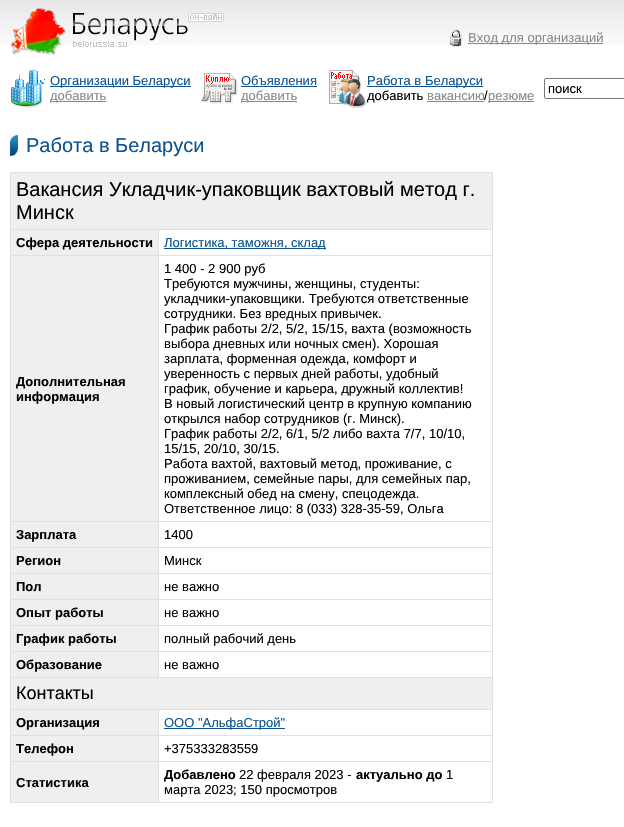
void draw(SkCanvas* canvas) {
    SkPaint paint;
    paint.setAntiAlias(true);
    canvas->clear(0xFFFFFFFF);
    canvas->drawImageRect(SkImages::DeferredFromEncodedData(SkData::MakeFromFileName("img1.png")), SkRect::MakeXYWH(0, 0, 624, 45), SkSamplingOptions());
    canvas->drawImageRect(SkImages::DeferredFromEncodedData(SkData::MakeFromFileName("img2.png")), SkRect::MakeXYWH(11, 7, 213, 49), SkSamplingOptions());
    canvas->drawImageRect(SkImages::DeferredFromEncodedData(SkData::MakeFromFileName("img3.png")), SkRect::MakeXYWH(450, 30, 12, 17), SkSamplingOptions());
    paint.setColor(0xFF888888);
    canvas->drawRect(SkRect::MakeXYWH(468, 43, 135, 1), paint);
    SkFont font1(fontMgr->matchFamilyStyle("Liberation Sans", SkFontStyle::Normal()), 13);
    font1.setSubpixel(true);
    canvas->drawString("Вход для организаций", 468, 42, font1, paint);
    canvas->drawImageRect(SkImages::DeferredFromEncodedData(SkData::MakeFromFileName("img4.png")), SkRect::MakeXYWH(11, 69, 34, 39), SkSamplingOptions());
    paint.setColor(0xFF0C538F);
    canvas->drawRect(SkRect::MakeXYWH(50, 86, 141, 1), paint);
    canvas->drawString("Организации Беларуси", 50, 85, font1, paint);
    paint.setColor(0xFF888888);
    canvas->drawRect(SkRect::MakeXYWH(50, 101, 56, 1), paint);
    canvas->drawString("добавить", 50, 100, font1, paint);
    canvas->drawImageRect(SkImages::DeferredFromEncodedData(SkData::MakeFromFileName("img5.png")), SkRect::MakeXYWH(201, 73, 37, 31), SkSamplingOptions());
    paint.setColor(0xFF0C538F);
    canvas->drawString("Объявления", 241, 85, font1, paint);
    canvas->drawRect(SkRect::MakeXYWH(241, 86, 76, 1), paint);
    paint.setColor(0xFF888888);
    canvas->drawRect(SkRect::MakeXYWH(241, 101, 56, 1), paint);
    canvas->drawString("добавить", 241, 100, font1, paint);
    canvas->drawImageRect(SkImages::DeferredFromEncodedData(SkData::MakeFromFileName("img6.png")), SkRect::MakeXYWH(329, 70, 38, 38), SkSamplingOptions());
    paint.setColor(0xFF0C538F);
    canvas->drawRect(SkRect::MakeXYWH(367, 86, 116, 1), paint);
    canvas->drawString("Работа в Беларуси", 367, 85, font1, paint);
    paint.setColor(0xFF000000);
    canvas->drawString("добавить", 367, 100, font1, paint);
    paint.setColor(0xFF888888);
    canvas->drawString("вакансию", 427, 100, font1, paint);
    canvas->drawRect(SkRect::MakeXYWH(427, 101, 57, 1), paint);
    paint.setColor(0xFF000000);
    canvas->drawString("/", 484, 100, font1, paint);
    paint.setColor(0xFF888888);
    canvas->drawRect(SkRect::MakeXYWH(488, 101, 46, 1), paint);
    canvas->drawString("резюме", 488, 100, font1, paint);
    paint.setStyle(SkPaint::kStroke_Style);
    paint.setStrokeWidth(1);
    paint.setColor(0xFF767676);
    canvas->drawRoundRect(SkRect::MakeXYWH(544.5f, 78.5f, 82, 20), 1.5f, 1.5f, paint);
    paint.setStyle(SkPaint::kFill_Style);
    paint.setColor(0xFF000000);
    canvas->drawString("поиск", 548, 93, font1, paint);
    canvas->drawImageRect(SkImages::DeferredFromEncodedData(SkData::MakeFromFileName("img7.png")), SkRect::MakeXYWH(10, 135, 8, 21), SkSamplingOptions());
    SkFont font2(fontMgr->matchFamilyStyle("Liberation Sans", SkFontStyle::Normal()), 20);
    font2.setSubpixel(true);
    paint.setColor(0xFF0C538F);
    canvas->drawString("Работа в Беларуси", 26, 152, font2, paint);
    paint.setColor(0xFFE0E0E0);
    canvas->drawRect(SkRect::MakeXYWH(10, 172, 483, 1), paint);
    canvas->drawRect(SkRect::MakeXYWH(492, 172, 1, 631), paint);
    canvas->drawRect(SkRect::MakeXYWH(10, 802, 483, 1), paint);
    canvas->drawRect(SkRect::MakeXYWH(10, 172, 1, 631), paint);
    paint.setColor(0xFFEFEFEF);
    canvas->drawRect(SkRect::MakeXYWH(11, 173, 481, 56), paint);
    paint.setColor(0xFF000000);
    canvas->drawString("Вакансия Укладчик-упаковщик вахтовый метод г.", 16, 196, font2, paint);
    canvas->drawString("Минск", 16, 219, font2, paint);
    paint.setColor(0xFFEFEFEF);
    canvas->drawRect(SkRect::MakeXYWH(11, 230, 147, 25), paint);
    paint.setColor(0xFFE0E0E0);
    canvas->drawRect(SkRect::MakeXYWH(158, 229, 335, 1), paint);
    canvas->drawRect(SkRect::MakeXYWH(158, 255, 335, 1), paint);
    canvas->drawRect(SkRect::MakeXYWH(158, 521, 335, 1), paint);
    canvas->drawRect(SkRect::MakeXYWH(158, 547, 335, 1), paint);
    canvas->drawRect(SkRect::MakeXYWH(158, 573, 335, 1), paint);
    canvas->drawRect(SkRect::MakeXYWH(158, 599, 335, 1), paint);
    canvas->drawRect(SkRect::MakeXYWH(158, 625, 335, 1), paint);
    canvas->drawRect(SkRect::MakeXYWH(158, 651, 335, 1), paint);
    canvas->drawRect(SkRect::MakeXYWH(10, 677, 483, 1), paint);
    canvas->drawRect(SkRect::MakeXYWH(158, 651, 1, 27), paint);
    canvas->drawRect(SkRect::MakeXYWH(10, 651, 149, 1), paint);
    canvas->drawRect(SkRect::MakeXYWH(158, 625, 1, 27), paint);
    canvas->drawRect(SkRect::MakeXYWH(10, 625, 149, 1), paint);
    canvas->drawRect(SkRect::MakeXYWH(158, 599, 1, 27), paint);
    canvas->drawRect(SkRect::MakeXYWH(10, 599, 149, 1), paint);
    canvas->drawRect(SkRect::MakeXYWH(158, 573, 1, 27), paint);
    canvas->drawRect(SkRect::MakeXYWH(10, 573, 149, 1), paint);
    canvas->drawRect(SkRect::MakeXYWH(158, 547, 1, 27), paint);
    canvas->drawRect(SkRect::MakeXYWH(10, 547, 149, 1), paint);
    canvas->drawRect(SkRect::MakeXYWH(158, 521, 1, 27), paint);
    canvas->drawRect(SkRect::MakeXYWH(10, 521, 149, 1), paint);
    canvas->drawRect(SkRect::MakeXYWH(158, 255, 1, 267), paint);
    canvas->drawRect(SkRect::MakeXYWH(10, 255, 149, 1), paint);
    canvas->drawRect(SkRect::MakeXYWH(158, 229, 1, 27), paint);
    canvas->drawRect(SkRect::MakeXYWH(10, 229, 149, 1), paint);
    SkFont font3(fontMgr->matchFamilyStyle("Liberation Sans", SkFontStyle::Bold()), 13);
    font3.setSubpixel(true);
    paint.setColor(0xFF000000);
    canvas->drawString("Сфера деятельности", 16, 247, font3, paint);
    paint.setColor(0xFF0C538F);
    canvas->drawRect(SkRect::MakeXYWH(164, 248, 162, 1), paint);
    canvas->drawString("Логистика, таможня, склад", 164, 247, font1, paint);
    paint.setColor(0xFFEFEFEF);
    canvas->drawRect(SkRect::MakeXYWH(11, 256, 147, 265), paint);
    paint.setColor(0xFF000000);
    canvas->drawString("Дополнительная", 16, 386, font3, paint);
    canvas->drawString("информация", 16, 401, font3, paint);
    canvas->drawString("1 400 - 2 900 руб", 164, 273, font1, paint);
    canvas->drawString("Требуются мужчины, женщины, студенты:", 164, 288, font1, paint);
    canvas->drawString("укладчики-упаковщики. Требуются ответственные", 164, 303, font1, paint);
    canvas->drawString("сотрудники. Без вредных привычек.", 164, 318, font1, paint);
    canvas->drawString("График работы 2/2, 5/2, 15/15, вахта (возможность", 164, 333, font1, paint);
    canvas->drawString("выбора дневных или ночных смен). Хорошая", 164, 348, font1, paint);
    canvas->drawString("зарплата, форменная одежда, комфорт и", 164, 363, font1, paint);
    canvas->drawString("уверенность с первых дней работы, удобный", 164, 378, font1, paint);
    canvas->drawString("график, обучение и карьера, дружный коллектив!", 164, 393, font1, paint);
    canvas->drawString("В новый логистический центр в крупную компанию", 164, 408, font1, paint);
    canvas->drawString("открылся набор сотрудников (г. Минск).", 164, 423, font1, paint);
    canvas->drawString("График работы 2/2, 6/1, 5/2 либо вахта 7/7, 10/10,", 164, 438, font1, paint);
    canvas->drawString("15/15, 20/10, 30/15.", 164, 453, font1, paint);
    canvas->drawString("Работа вахтой, вахтовый метод, проживание, с", 164, 468, font1, paint);
    canvas->drawString("проживанием, семейные пары, для семейных пар,", 164, 483, font1, paint);
    canvas->drawString("комплексный обед на смену, спецодежда.", 164, 498, font1, paint);
    canvas->drawString("Ответственное лицо: 8 (033) 328-35-59, Ольга", 164, 513, font1, paint);
    paint.setColor(0xFFEFEFEF);
    canvas->drawRect(SkRect::MakeXYWH(11, 522, 147, 25), paint);
    paint.setColor(0xFF000000);
    canvas->drawString("Зарплата", 16, 539, font3, paint);
    canvas->drawString("1400", 164, 539, font1, paint);
    paint.setColor(0xFFEFEFEF);
    canvas->drawRect(SkRect::MakeXYWH(11, 548, 147, 25), paint);
    paint.setColor(0xFF000000);
    canvas->drawString("Регион", 16, 565, font3, paint);
    canvas->drawString("Минск", 164, 565, font1, paint);
    paint.setColor(0xFFEFEFEF);
    canvas->drawRect(SkRect::MakeXYWH(11, 574, 147, 25), paint);
    paint.setColor(0xFF000000);
    canvas->drawString("Пол", 16, 591, font3, paint);
    canvas->drawString("не важно", 164, 591, font1, paint);
    paint.setColor(0xFFEFEFEF);
    canvas->drawRect(SkRect::MakeXYWH(11, 600, 147, 25), paint);
    paint.setColor(0xFF000000);
    canvas->drawString("Опыт работы", 16, 617, font3, paint);
    canvas->drawString("не важно", 164, 617, font1, paint);
    paint.setColor(0xFFEFEFEF);
    canvas->drawRect(SkRect::MakeXYWH(11, 626, 147, 25), paint);
    paint.setColor(0xFF000000);
    canvas->drawString("График работы", 16, 643, font3, paint);
    canvas->drawString("полный рабочий день", 164, 643, font1, paint);
    paint.setColor(0xFFEFEFEF);
    canvas->drawRect(SkRect::MakeXYWH(11, 652, 147, 25), paint);
    paint.setColor(0xFF000000);
    canvas->drawString("Образование", 16, 669, font3, paint);
    canvas->drawString("не важно", 164, 669, font1, paint);
    paint.setColor(0xFFEFEFEF);
    canvas->drawRect(SkRect::MakeXYWH(11, 678, 481, 31), paint);
    SkFont font4(fontMgr->matchFamilyStyle("Liberation Sans", SkFontStyle::Normal()), 18);
    font4.setSubpixel(true);
    paint.setColor(0xFF000000);
    canvas->drawString("Контакты", 16, 699, font4, paint);
    paint.setColor(0xFFEFEFEF);
    canvas->drawRect(SkRect::MakeXYWH(11, 710, 147, 25), paint);
    paint.setColor(0xFFE0E0E0);
    canvas->drawRect(SkRect::MakeXYWH(158, 709, 335, 1), paint);
    canvas->drawRect(SkRect::MakeXYWH(158, 735, 335, 1), paint);
    canvas->drawRect(SkRect::MakeXYWH(158, 761, 335, 1), paint);
    canvas->drawRect(SkRect::MakeXYWH(158, 761, 1, 42), paint);
    canvas->drawRect(SkRect::MakeXYWH(10, 761, 149, 1), paint);
    canvas->drawRect(SkRect::MakeXYWH(158, 735, 1, 27), paint);
    canvas->drawRect(SkRect::MakeXYWH(10, 735, 149, 1), paint);
    canvas->drawRect(SkRect::MakeXYWH(158, 709, 1, 27), paint);
    canvas->drawRect(SkRect::MakeXYWH(10, 709, 149, 1), paint);
    paint.setColor(0xFF000000);
    canvas->drawString("Организация", 16, 727, font3, paint);
    paint.setColor(0xFF0C538F);
    canvas->drawRect(SkRect::MakeXYWH(164, 728, 121, 1), paint);
    canvas->drawString("ООО \"АльфаСтрой\"", 164, 727, font1, paint);
    paint.setColor(0xFFEFEFEF);
    canvas->drawRect(SkRect::MakeXYWH(11, 736, 147, 25), paint);
    paint.setColor(0xFF000000);
    canvas->drawString("Телефон", 16, 753, font3, paint);
    canvas->drawString("+375333283559", 164, 753, font1, paint);
    paint.setColor(0xFFEFEFEF);
    canvas->drawRect(SkRect::MakeXYWH(11, 762, 147, 40), paint);
    paint.setColor(0xFF000000);
    canvas->drawString("Статистика", 16, 787, font3, paint);
    canvas->drawString("Добавлено", 164, 779, font3, paint);
    canvas->drawString("22 февраля 2023 -", 239, 779, font1, paint);
    canvas->drawString("актуально до", 356, 779, font3, paint);
    canvas->drawString("1", 446, 779, font1, paint);
    canvas->drawString("марта 2023; 150 просмотров", 164, 794, font1, paint);
}
